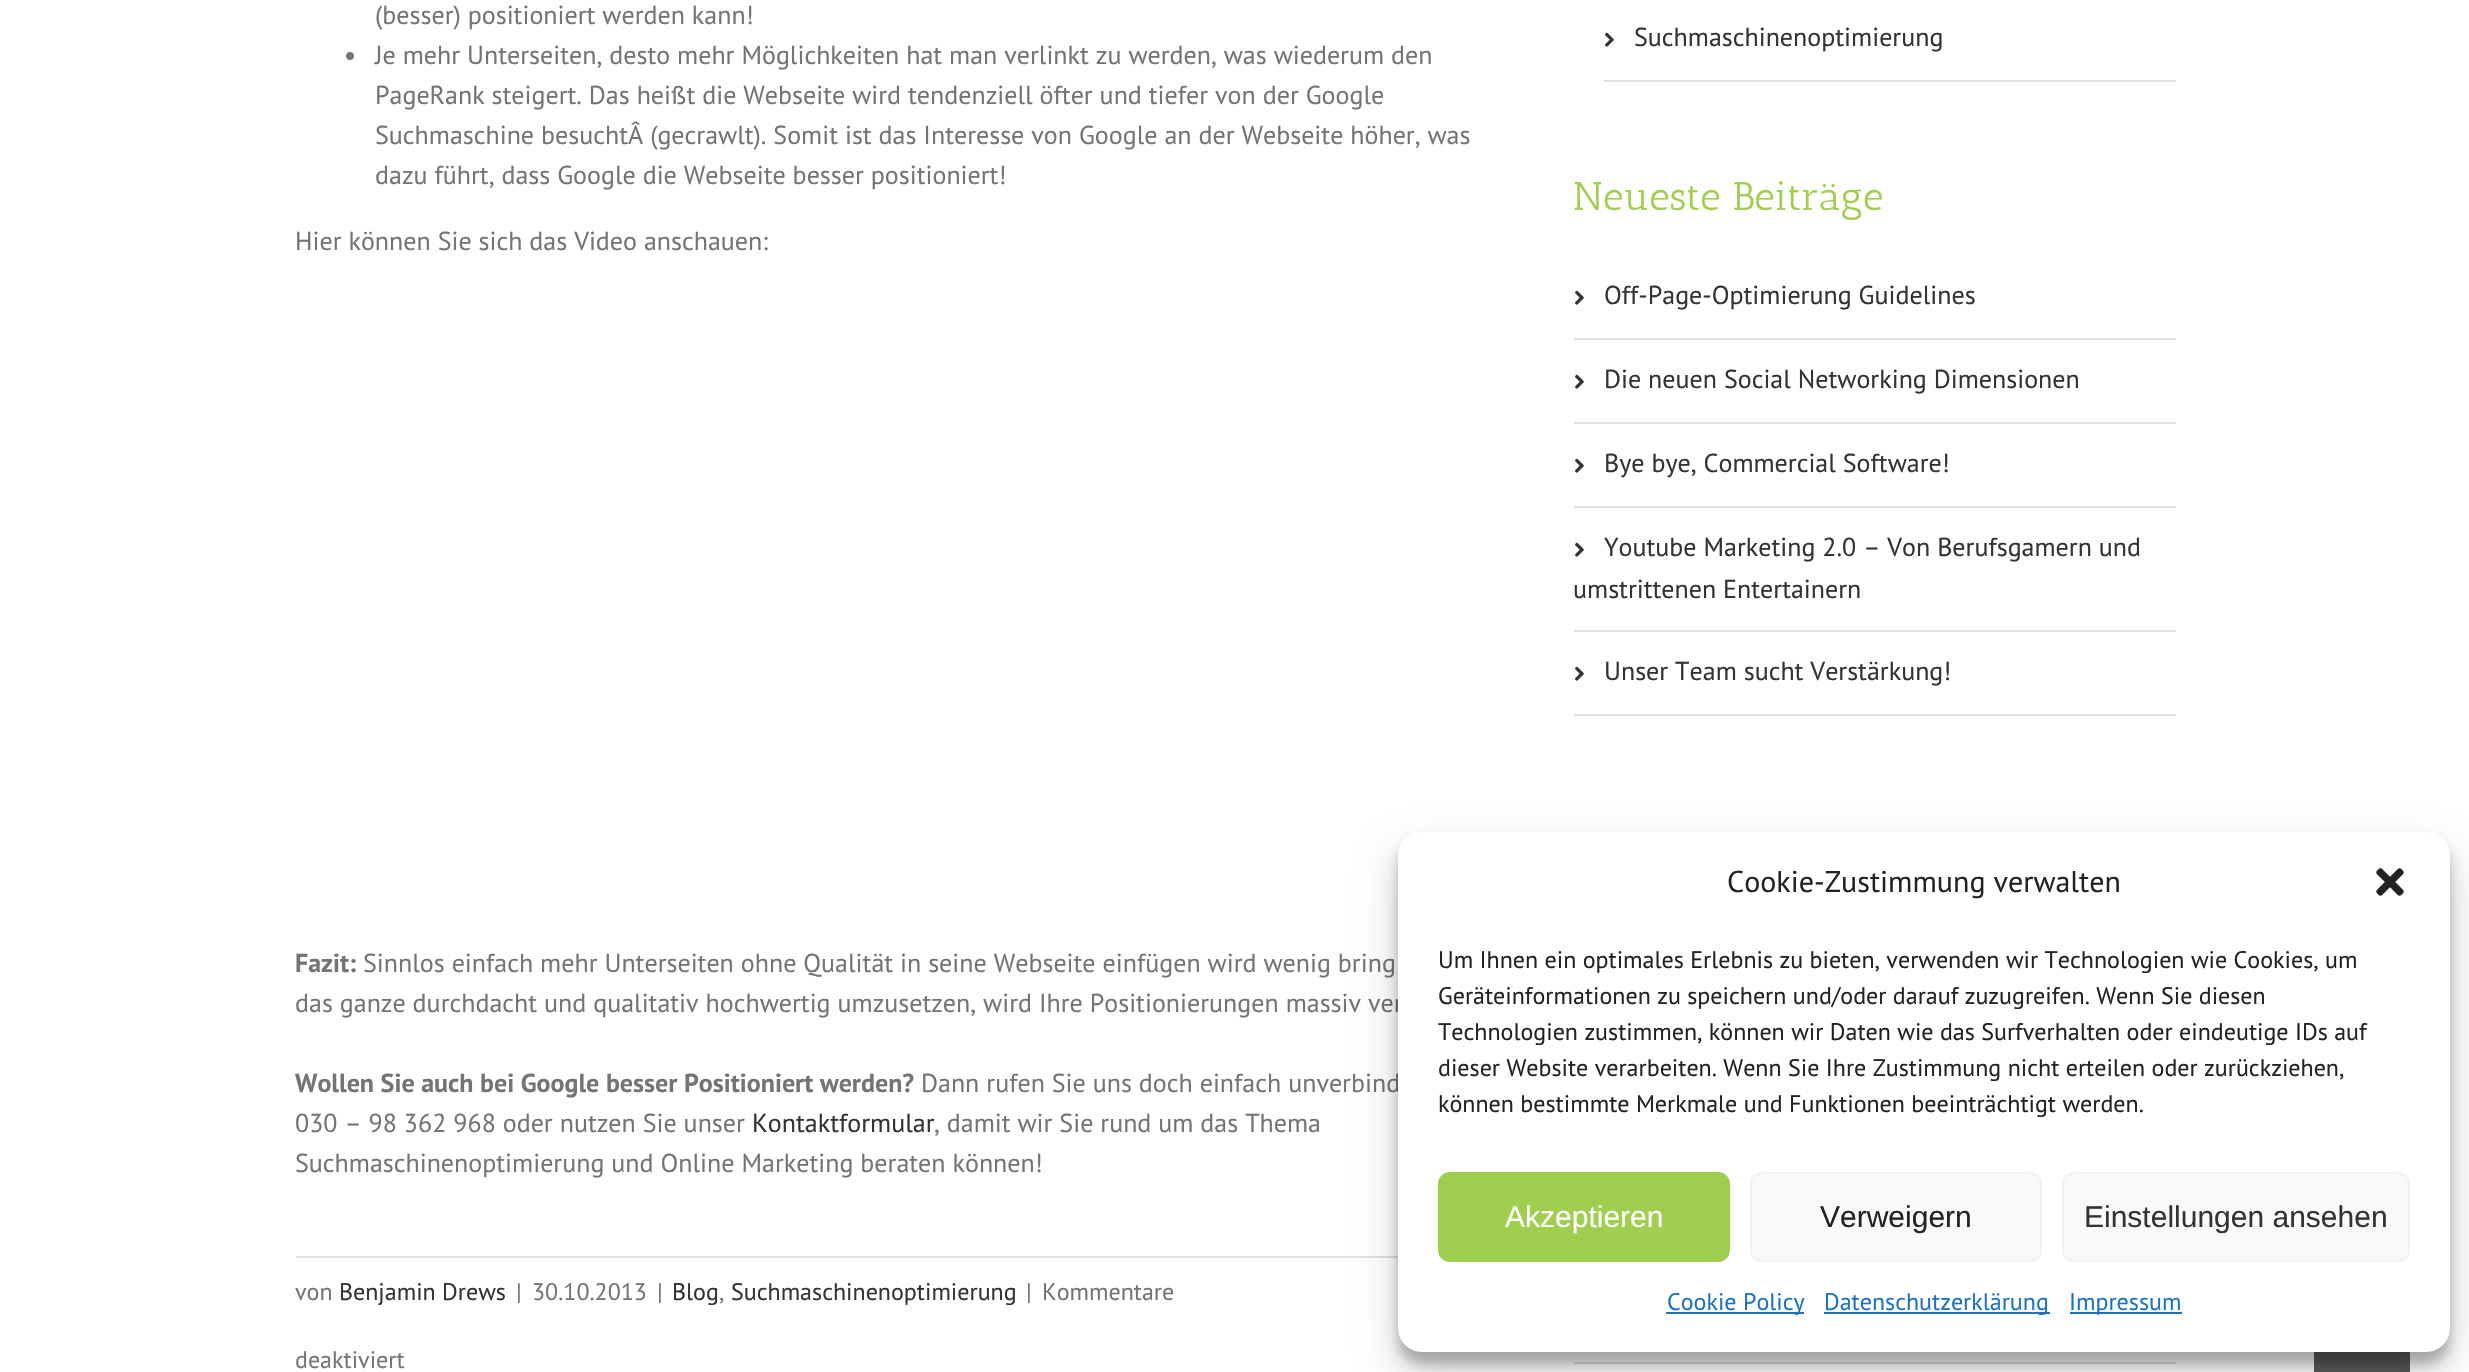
void draw(SkCanvas* canvas) {
    SkPaint paint;
    paint.setAntiAlias(true);
    canvas->clear(0xFFFFFFFF);
    SkFont font1(fontMgr->matchFamilyStyle("PT Sans", SkFontStyle::Normal()), 26);
    font1.setSubpixel(true);
    paint.setColor(0xFF747474);
    canvas->drawString("(besser) positioniert werden kann!", 375, 24, font1, paint);
    canvas->drawCircle(350, 56, 4, paint);
    canvas->drawString("Je mehr Unterseiten, desto mehr Möglichkeiten hat man verlinkt zu werden, was wiederum den", 375, 64, font1, paint);
    canvas->drawString("PageRank steigert. Das heißt die Webseite wird tendenziell öfter und tiefer von der Google", 375, 104, font1, paint);
    canvas->drawString("Suchmaschine besuchtÂ (gecrawlt). Somit ist das Interesse von Google an der Webseite höher, was", 375, 144, font1, paint);
    canvas->drawString("dazu führt, dass Google die Webseite besser positioniert!", 375, 184, font1, paint);
    canvas->drawString("Hier können Sie sich das Video anschauen:", 295, 250, font1, paint);
    SkFont font2(fontMgr->matchFamilyStyle("PT Sans", SkFontStyle::Bold()), 26);
    font2.setSubpixel(true);
    canvas->drawString("Fazit:", 295, 972, font2, paint);
    canvas->drawString("Sinnlos einfach mehr Unterseiten ohne Qualität in seine Webseite einfügen wird wenig bring", 363, 972, font1, paint);
    canvas->drawString("das ganze durchdacht und qualitativ hochwertig umzusetzen, wird Ihre Positionierungen massiv ver", 295, 1012, font1, paint);
    canvas->drawString("Wollen Sie auch bei Google besser Positioniert werden?", 295, 1092, font2, paint);
    canvas->drawString("Dann rufen Sie uns doch einfach unverbind", 921, 1092, font1, paint);
    canvas->drawString("030 – 98 362 968 oder nutzen Sie unser", 295, 1132, font1, paint);
    paint.setColor(0xFF333333);
    canvas->drawString("Kontaktformular", 752, 1132, font1, paint);
    paint.setColor(0xFF747474);
    canvas->drawString(", damit wir Sie rund um das Thema", 934, 1132, font1, paint);
    canvas->drawString("Suchmaschinenoptimierung und Online Marketing beraten können!", 295, 1172, font1, paint);
    paint.setColor(0xFFE0DEDE);
    canvas->drawRect(SkRect::MakeXYWH(296, 1256, 1102, 2), paint);
    SkFont font3(fontMgr->matchFamilyStyle("PT Sans", SkFontStyle::Normal()), 24);
    font3.setSubpixel(true);
    paint.setColor(0xFF747474);
    canvas->drawString("von", 295, 1300, font3, paint);
    paint.setColor(0xFF333333);
    canvas->drawString("Benjamin Drews", 339, 1300, font3, paint);
    paint.setColor(0xFF747474);
    canvas->drawString("|", 516, 1300, font3, paint);
    canvas->drawString("30.10.2013", 532, 1300, font3, paint);
    canvas->drawString("|", 657, 1300, font3, paint);
    paint.setColor(0xFF333333);
    canvas->drawString("Blog", 672, 1300, font3, paint);
    paint.setColor(0xFF747474);
    canvas->drawString(",", 719, 1300, font3, paint);
    paint.setColor(0xFF333333);
    canvas->drawString("Suchmaschinenoptimierung", 731, 1300, font3, paint);
    paint.setColor(0xFF747474);
    canvas->drawString("|", 1026, 1300, font3, paint);
    canvas->drawString("Kommentare", 1042, 1300, font3, paint);
    canvas->drawString("deaktiviert", 295, 1368, font3, paint);
    paint.setColor(0xFFE0DEDE);
    canvas->drawRect(SkRect::MakeXYWH(1604, 80, 572, 2), paint);
    canvas->drawImageRect(SkImages::DeferredFromEncodedData(SkData::MakeFromFileName("img1.png")), SkRect::MakeXYWH(1605, 32, 9, 15), SkSamplingOptions());
    paint.setColor(0xFF333333);
    canvas->drawString("Suchmaschinenoptimierung", 1634, 46, font1, paint);
    SkFont font4(fontMgr->matchFamilyStyle("Antic Slab", SkFontStyle::Normal()), 40);
    font4.setSubpixel(true);
    paint.setColor(0xFFA0CE4E);
    canvas->drawString("Neueste Beiträge", 1573, 210, font4, paint);
    paint.setColor(0xFFE0DEDE);
    canvas->drawRect(SkRect::MakeXYWH(1574, 338, 602, 2), paint);
    canvas->drawImageRect(SkImages::DeferredFromEncodedData(SkData::MakeFromFileName("img1.png")), SkRect::MakeXYWH(1575, 290, 9, 15), SkSamplingOptions());
    paint.setColor(0xFF333333);
    canvas->drawString("Off-Page-Optimierung Guidelines", 1604, 304, font1, paint);
    paint.setColor(0xFFE0DEDE);
    canvas->drawRect(SkRect::MakeXYWH(1574, 422, 602, 2), paint);
    canvas->drawImageRect(SkImages::DeferredFromEncodedData(SkData::MakeFromFileName("img1.png")), SkRect::MakeXYWH(1575, 374, 9, 15), SkSamplingOptions());
    paint.setColor(0xFF333333);
    canvas->drawString("Die neuen Social Networking Dimensionen", 1604, 388, font1, paint);
    paint.setColor(0xFFE0DEDE);
    canvas->drawRect(SkRect::MakeXYWH(1574, 506, 602, 2), paint);
    canvas->drawImageRect(SkImages::DeferredFromEncodedData(SkData::MakeFromFileName("img1.png")), SkRect::MakeXYWH(1575, 458, 9, 15), SkSamplingOptions());
    paint.setColor(0xFF333333);
    canvas->drawString("Bye bye, Commercial Software!", 1604, 472, font1, paint);
    paint.setColor(0xFFE0DEDE);
    canvas->drawRect(SkRect::MakeXYWH(1574, 630, 602, 2), paint);
    canvas->drawImageRect(SkImages::DeferredFromEncodedData(SkData::MakeFromFileName("img1.png")), SkRect::MakeXYWH(1575, 542, 9, 15), SkSamplingOptions());
    paint.setColor(0xFF333333);
    canvas->drawString("Youtube Marketing 2.0 – Von Berufsgamern und", 1604, 556, font1, paint);
    canvas->drawString("umstrittenen Entertainern", 1573, 598, font1, paint);
    paint.setColor(0xFFE0DEDE);
    canvas->drawRect(SkRect::MakeXYWH(1574, 714, 602, 2), paint);
    canvas->drawImageRect(SkImages::DeferredFromEncodedData(SkData::MakeFromFileName("img1.png")), SkRect::MakeXYWH(1575, 666, 9, 15), SkSamplingOptions());
    paint.setColor(0xFF333333);
    canvas->drawString("Unser Team sucht Verstärkung!", 1604, 680, font1, paint);
    paint.setColor(0xFFE0DEDE);
    canvas->drawRect(SkRect::MakeXYWH(1574, 1362, 602, 2), paint);
    paint.setColor(0xFF5A5A5A);
    canvas->drawRect(SkRect::MakeXYWH(2314, 1352, 96, 20), paint);
    paint.setColor(0x3B000000);
    paint.setMaskFilter(SkMaskFilter::MakeBlur(kNormal_SkBlurStyle, 6));
    canvas->drawRoundRect(SkRect::MakeXYWH(1398, 844, 1052, 520), 24, 24, paint);
    paint.setMaskFilter(nullptr);
    paint.setColor(0x30000000);
    paint.setMaskFilter(SkMaskFilter::MakeBlur(kNormal_SkBlurStyle, 20));
    canvas->drawRoundRect(SkRect::MakeXYWH(1398, 852, 1052, 520), 24, 24, paint);
    paint.setMaskFilter(nullptr);
    paint.setColor(0xFFFFFFFF);
    canvas->drawRoundRect(SkRect::MakeXYWH(1398, 832, 1052, 520), 24, 24, paint);
    SkFont font5(fontMgr->matchFamilyStyle("PT Sans", SkFontStyle::Normal()), 30);
    font5.setSubpixel(true);
    paint.setColor(0xFF222222);
    canvas->drawString("Cookie-Zustimmung verwalten", 1727, 892, font5, paint);
    canvas->drawImageRect(SkImages::DeferredFromEncodedData(SkData::MakeFromFileName("img2.png")), SkRect::MakeXYWH(2376, 868, 28, 28), SkSamplingOptions());
    canvas->drawString("Um Ihnen ein optimales Erlebnis zu bieten, verwenden wir Technologien wie Cookies, um", 1438, 968, font3, paint);
    canvas->drawString("Geräteinformationen zu speichern und/oder darauf zuzugreifen. Wenn Sie diesen", 1438, 1004, font3, paint);
    canvas->drawString("Technologien zustimmen, können wir Daten wie das Surfverhalten oder eindeutige IDs auf", 1438, 1040, font3, paint);
    canvas->drawString("dieser Website verarbeiten. Wenn Sie Ihre Zustimmung nicht erteilen oder zurückziehen,", 1438, 1076, font3, paint);
    canvas->drawString("können bestimmte Merkmale und Funktionen beeinträchtigt werden.", 1438, 1112, font3, paint);
    paint.setColor(0xFFA0CE4E);
    canvas->drawRoundRect(SkRect::MakeXYWH(1439, 1173, 290, 88), 11, 11, paint);
    paint.setStyle(SkPaint::kStroke_Style);
    paint.setStrokeWidth(2);
    canvas->drawRoundRect(SkRect::MakeXYWH(1439, 1173, 290, 88), 11, 11, paint);
    SkFont font6(fontMgr->matchFamilyStyle("Liberation Sans", SkFontStyle::Normal()), 30);
    font6.setSubpixel(true);
    paint.setStyle(SkPaint::kFill_Style);
    paint.setColor(0xFFFFFFFF);
    canvas->drawString("Akzeptieren", 1505, 1227, font6, paint);
    paint.setColor(0xFFF9F9F9);
    canvas->drawRoundRect(SkRect::MakeXYWH(1751, 1173, 290, 88), 11, 11, paint);
    paint.setStyle(SkPaint::kStroke_Style);
    paint.setColor(0xFFF2F2F2);
    canvas->drawRoundRect(SkRect::MakeXYWH(1751, 1173, 290, 88), 11, 11, paint);
    paint.setStyle(SkPaint::kFill_Style);
    paint.setColor(0xFF222222);
    canvas->drawString("Verweigern", 1820, 1227, font6, paint);
    paint.setColor(0xFFF9F9F9);
    canvas->drawRoundRect(SkRect::MakeXYWH(2063, 1173, 346, 88), 11, 11, paint);
    paint.setStyle(SkPaint::kStroke_Style);
    paint.setColor(0xFFF2F2F2);
    canvas->drawRoundRect(SkRect::MakeXYWH(2063, 1173, 346, 88), 11, 11, paint);
    paint.setStyle(SkPaint::kFill_Style);
    paint.setColor(0xFF333333);
    canvas->drawString("Einstellungen ansehen", 2084, 1227, font6, paint);
    paint.setColor(0xFF1E73BE);
    canvas->drawRect(SkRect::MakeXYWH(1666, 1312, 138, 2), paint);
    canvas->drawString("Cookie Policy", 1667, 1310, font3, paint);
    canvas->drawRect(SkRect::MakeXYWH(1824, 1312, 226, 2), paint);
    canvas->drawString("Datenschutzerklärung", 1824, 1310, font3, paint);
    canvas->drawRect(SkRect::MakeXYWH(2070, 1312, 112, 2), paint);
    canvas->drawString("Impressum", 2069, 1310, font3, paint);
}
